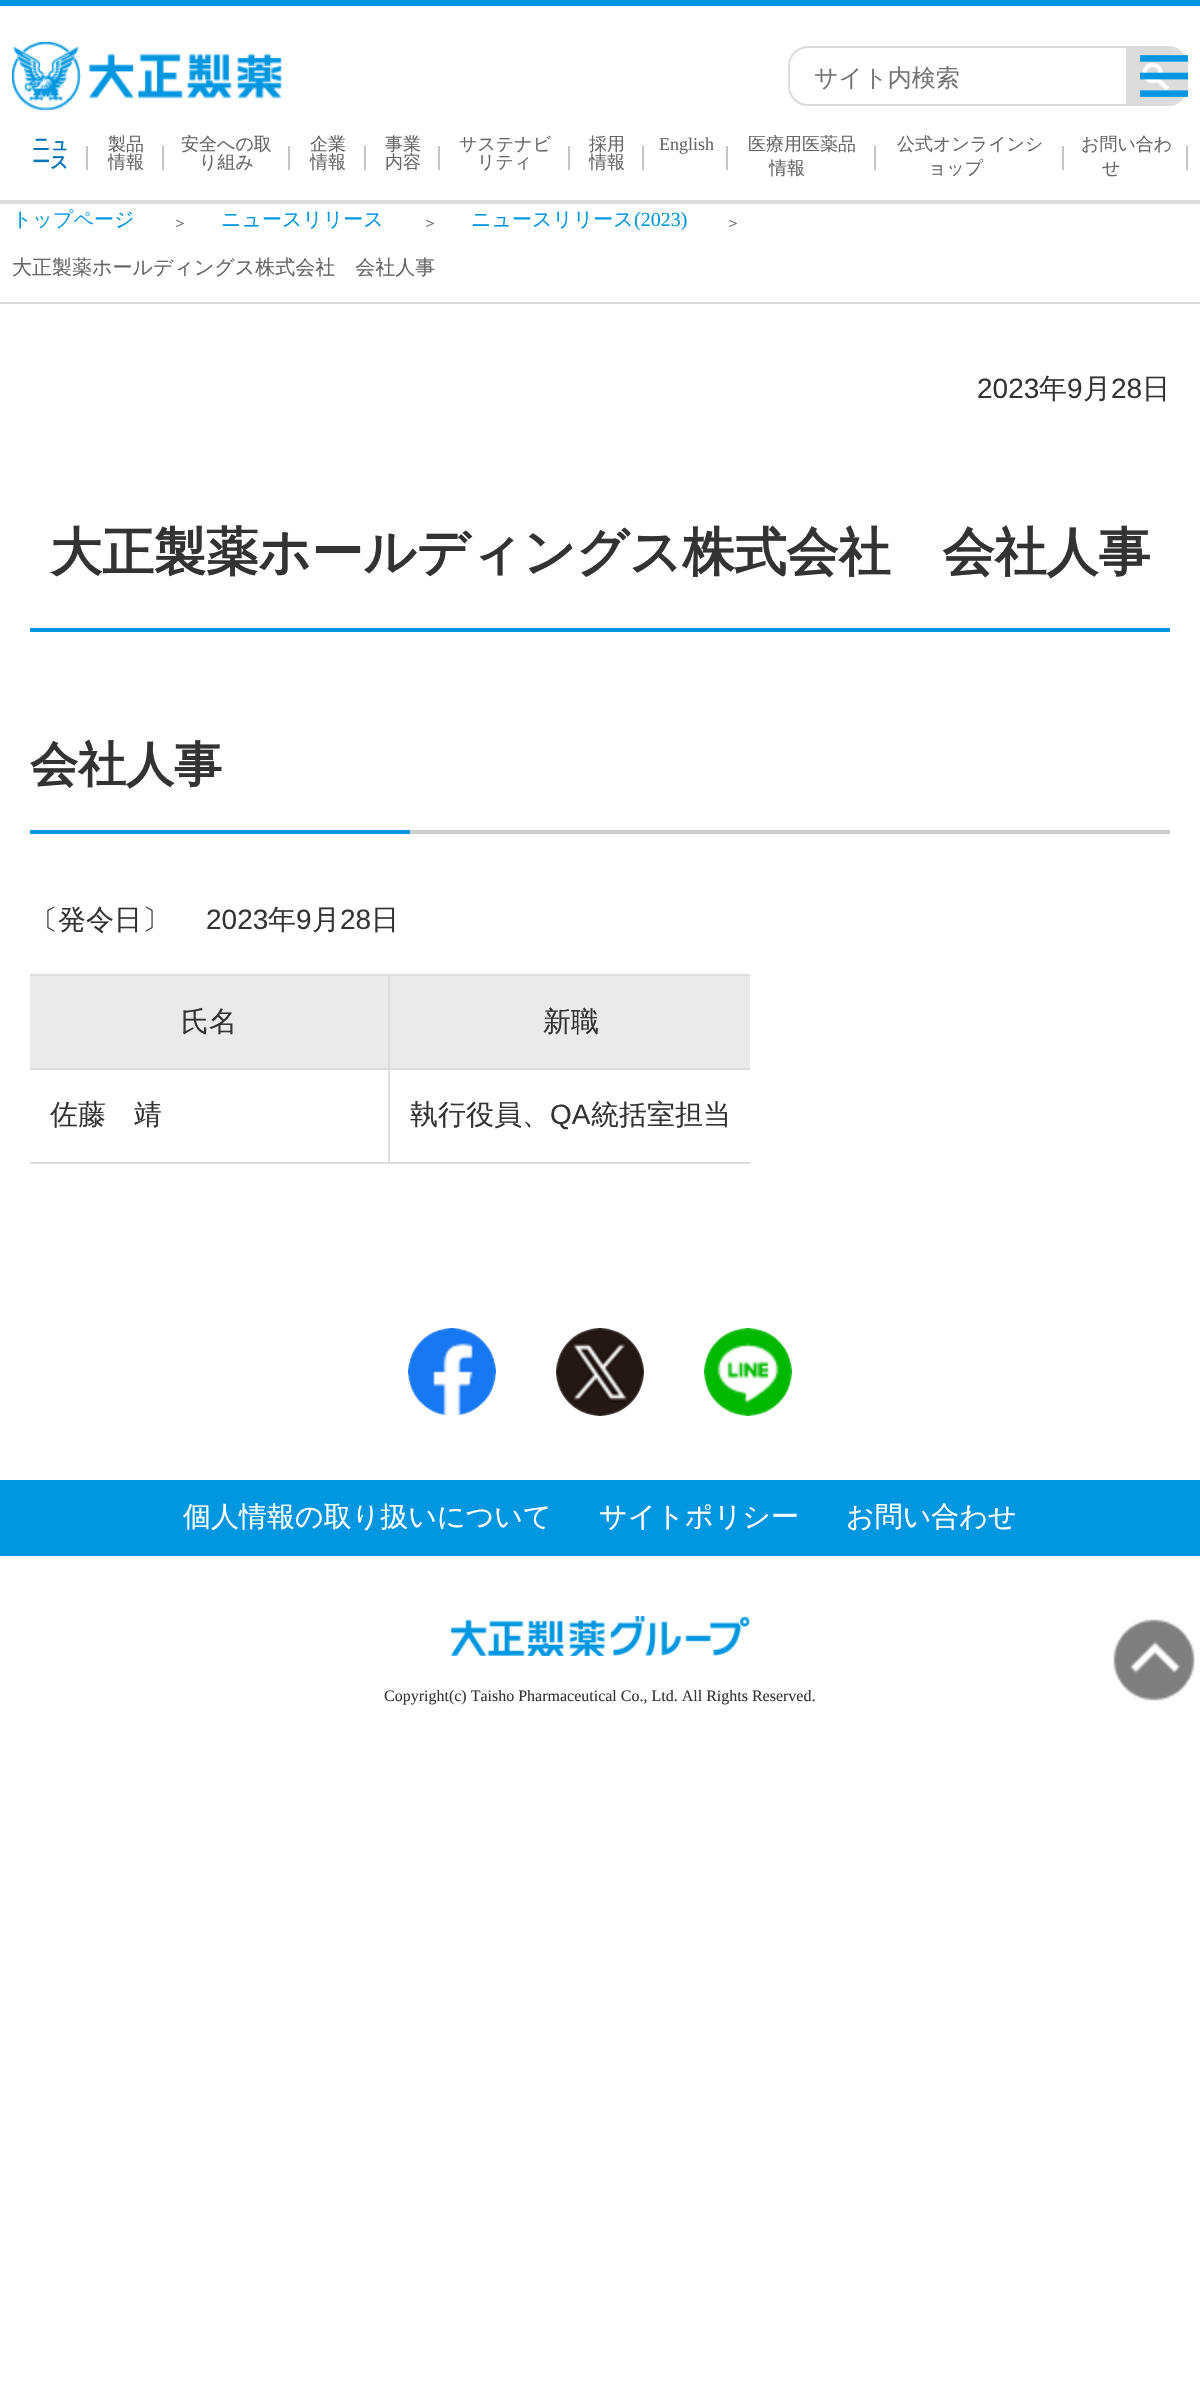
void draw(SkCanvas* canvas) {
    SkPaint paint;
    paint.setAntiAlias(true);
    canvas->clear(0xFFFFFFFF);
    paint.setColor(0xFF0096E0);
    canvas->drawRect(SkRect::MakeXYWH(0, 0, 1200, 6), paint);
    canvas->drawImageRect(SkImages::DeferredFromEncodedData(SkData::MakeFromFileName("img1.png")), SkRect::MakeXYWH(12, 42, 270, 68), SkSamplingOptions());
    paint.setStyle(SkPaint::kStroke_Style);
    paint.setStrokeWidth(2);
    paint.setColor(0xFFDCDCDC);
    canvas->drawRoundRect(SkRect::MakeXYWH(789, 47, 398, 58), 19, 19, paint);
    SkFont font1(fontMgr->matchFamilyStyle("WenQuanYi Zen Hei", SkFontStyle(500, SkFontStyle::kNormal_Width, SkFontStyle::kUpright_Slant)), 24);
    font1.setSubpixel(true);
    paint.setStyle(SkPaint::kFill_Style);
    paint.setColor(0xFF757575);
    canvas->drawString("サイト内検索", 814, 86, font1, paint);
    paint.setColor(0xFFDCDCDC);
    canvas->drawPath(SkPathBuilder().moveTo(1126, 48).lineTo(1168, 48).cubicTo(1178, 48, 1186, 56, 1186, 66).lineTo(1186, 86).cubicTo(1186, 96, 1178, 104, 1168, 104).lineTo(1126, 104).close().detach(), paint);
    canvas->drawImageRect(SkImages::DeferredFromEncodedData(SkData::MakeFromFileName("img2.png")), SkRect::MakeXYWH(1142, 62, 27, 29), SkSamplingOptions());
    canvas->drawImageRect(SkImages::DeferredFromEncodedData(SkData::MakeFromFileName("img3.png")), SkRect::MakeXYWH(1140, 55, 48, 42), SkSamplingOptions());
    SkFont font2(fontMgr->matchFamilyStyle("WenQuanYi Zen Hei", SkFontStyle::Bold()), 18);
    font2.setSubpixel(true);
    paint.setColor(0xFF0074B7);
    canvas->drawString("ニュ", 32, 150, font2, paint);
    canvas->drawString("ース", 32, 168, font2, paint);
    paint.setColor(0xFFC5C5C5);
    canvas->drawRect(SkRect::MakeXYWH(86, 146, 2, 24), paint);
    SkFont font3(fontMgr->matchFamilyStyle("WenQuanYi Zen Hei", SkFontStyle(500, SkFontStyle::kNormal_Width, SkFontStyle::kUpright_Slant)), 18);
    font3.setSubpixel(true);
    paint.setColor(0xFF666666);
    canvas->drawString("製品", 108, 150, font3, paint);
    canvas->drawString("情報", 108, 168, font3, paint);
    paint.setColor(0xFFC5C5C5);
    canvas->drawRect(SkRect::MakeXYWH(162, 146, 2, 24), paint);
    paint.setColor(0xFF666666);
    canvas->drawString("安全への取", 181, 150, font3, paint);
    canvas->drawString("り組み", 199, 168, font3, paint);
    paint.setColor(0xFFC5C5C5);
    canvas->drawRect(SkRect::MakeXYWH(288, 146, 2, 24), paint);
    paint.setColor(0xFF666666);
    canvas->drawString("企業", 310, 150, font3, paint);
    canvas->drawString("情報", 310, 168, font3, paint);
    paint.setColor(0xFFC5C5C5);
    canvas->drawRect(SkRect::MakeXYWH(364, 146, 2, 24), paint);
    paint.setColor(0xFF666666);
    canvas->drawString("事業", 385, 150, font3, paint);
    canvas->drawString("内容", 385, 168, font3, paint);
    paint.setColor(0xFFC5C5C5);
    canvas->drawRect(SkRect::MakeXYWH(438, 146, 2, 24), paint);
    paint.setColor(0xFF666666);
    canvas->drawString("サステナビ", 459, 150, font3, paint);
    canvas->drawString("リティ", 477, 168, font3, paint);
    paint.setColor(0xFFC5C5C5);
    canvas->drawRect(SkRect::MakeXYWH(568, 146, 2, 24), paint);
    paint.setColor(0xFF666666);
    canvas->drawString("採用", 589, 150, font3, paint);
    canvas->drawString("情報", 589, 168, font3, paint);
    paint.setColor(0xFFC5C5C5);
    canvas->drawRect(SkRect::MakeXYWH(642, 146, 2, 24), paint);
    SkFont font4(fontMgr->matchFamilyStyle("Liberation Serif", SkFontStyle::Normal()), 18);
    font4.setSubpixel(true);
    paint.setColor(0xFF666666);
    canvas->drawString("English", 659, 150, font4, paint);
    paint.setColor(0xFFC5C5C5);
    canvas->drawRect(SkRect::MakeXYWH(726, 146, 2, 24), paint);
    paint.setColor(0xFF666666);
    canvas->drawString("医療用医薬品", 748, 150, font3, paint);
    canvas->drawString("情報", 769, 174, font3, paint);
    paint.setColor(0xFFC5C5C5);
    canvas->drawRect(SkRect::MakeXYWH(874, 146, 2, 24), paint);
    paint.setColor(0xFF666666);
    canvas->drawString("公式オンラインシ", 897, 150, font3, paint);
    canvas->drawString("ョップ", 928, 174, font3, paint);
    paint.setColor(0xFFC5C5C5);
    canvas->drawRect(SkRect::MakeXYWH(1062, 146, 2, 24), paint);
    paint.setColor(0xFF666666);
    canvas->drawString("お問い合わ", 1081, 150, font3, paint);
    canvas->drawString("せ", 1102, 174, font3, paint);
    paint.setColor(0xFFC5C5C5);
    canvas->drawRect(SkRect::MakeXYWH(1186, 146, 2, 24), paint);
    paint.setColor(0xFFDCDCDC);
    canvas->drawRect(SkRect::MakeXYWH(0, 200, 1200, 4), paint);
    canvas->drawRect(SkRect::MakeXYWH(0, 302, 1200, 2), paint);
    SkFont font5(fontMgr->matchFamilyStyle("WenQuanYi Zen Hei", SkFontStyle(500, SkFontStyle::kNormal_Width, SkFontStyle::kUpright_Slant)), 20);
    font5.setSubpixel(true);
    paint.setColor(0xFF0096E0);
    canvas->drawString("トップページ", 12, 226, font5, paint);
    SkFont font6(fontMgr->matchFamilyStyle("WenQuanYi Zen Hei", SkFontStyle(500, SkFontStyle::kNormal_Width, SkFontStyle::kUpright_Slant)), 16);
    font6.setSubpixel(true);
    paint.setColor(0xFF666666);
    canvas->drawString("＞", 172, 228, font6, paint);
    paint.setColor(0xFF0096E0);
    canvas->drawString("ニュースリリース", 221, 226, font5, paint);
    paint.setColor(0xFF666666);
    canvas->drawString("＞", 422, 228, font6, paint);
    paint.setColor(0xFF0096E0);
    canvas->drawString("ニュースリリース", 471, 226, font5, paint);
    SkFont font7(fontMgr->matchFamilyStyle("Liberation Serif", SkFontStyle::Normal()), 20);
    font7.setSubpixel(true);
    canvas->drawString("(2023)", 634, 226, font7, paint);
    paint.setColor(0xFF666666);
    canvas->drawString("＞", 725, 228, font6, paint);
    canvas->drawString("大正製薬ホールディングス株式会社　会社人事", 12, 274, font5, paint);
    SkFont font8(fontMgr->matchFamilyStyle("Liberation Sans", SkFontStyle::Normal()), 28);
    font8.setSubpixel(true);
    paint.setColor(0xFF333333);
    canvas->drawString("2023", 977, 398, font8, paint);
    SkFont font9(fontMgr->matchFamilyStyle("WenQuanYi Zen Hei", SkFontStyle(500, SkFontStyle::kNormal_Width, SkFontStyle::kUpright_Slant)), 28);
    font9.setSubpixel(true);
    canvas->drawString("年", 1039, 398, font9, paint);
    canvas->drawString("9", 1067, 398, font8, paint);
    canvas->drawString("月", 1083, 398, font9, paint);
    canvas->drawString("28", 1111, 398, font8, paint);
    canvas->drawString("日", 1142, 398, font9, paint);
    SkFont font10(fontMgr->matchFamilyStyle("WenQuanYi Zen Hei", SkFontStyle::Bold()), 52);
    font10.setSubpixel(true);
    canvas->drawString("大正製薬ホールディングス株式会社　会社人事", 50, 570, font10, paint);
    paint.setColor(0xFF0097E0);
    canvas->drawRect(SkRect::MakeXYWH(30, 628, 1140, 4), paint);
    paint.setColor(0xFFCCCCCC);
    canvas->drawRect(SkRect::MakeXYWH(410, 830, 760, 4), paint);
    SkFont font11(fontMgr->matchFamilyStyle("WenQuanYi Zen Hei", SkFontStyle::Bold()), 48);
    font11.setSubpixel(true);
    paint.setColor(0xFF333333);
    canvas->drawString("会社人事", 30, 781, font11, paint);
    paint.setColor(0xFF0097E0);
    canvas->drawRect(SkRect::MakeXYWH(30, 830, 380, 4), paint);
    paint.setColor(0xFF333333);
    canvas->drawString("〔発令日〕", 30, 929, font9, paint);
    canvas->drawString("2023", 206, 929, font8, paint);
    canvas->drawString("年", 268, 929, font9, paint);
    canvas->drawString("9", 296, 929, font8, paint);
    canvas->drawString("月", 312, 929, font9, paint);
    canvas->drawString("28", 340, 929, font8, paint);
    canvas->drawString("日", 371, 929, font9, paint);
    paint.setColor(0xFFDDDDDD);
    canvas->drawRect(SkRect::MakeXYWH(30, 974, 720, 2), paint);
    paint.setColor(0xFFEAEAEA);
    canvas->drawRect(SkRect::MakeXYWH(30, 976, 358, 92), paint);
    paint.setColor(0xFFDDDDDD);
    canvas->drawRect(SkRect::MakeXYWH(388, 976, 2, 188), paint);
    canvas->drawRect(SkRect::MakeXYWH(30, 1068, 720, 2), paint);
    paint.setColor(0xFF333333);
    canvas->drawString("氏名", 181, 1031, font9, paint);
    paint.setColor(0xFFEAEAEA);
    canvas->drawRect(SkRect::MakeXYWH(390, 976, 360, 92), paint);
    paint.setColor(0xFF333333);
    canvas->drawString("新職", 543, 1031, font9, paint);
    paint.setColor(0xFFDDDDDD);
    canvas->drawRect(SkRect::MakeXYWH(30, 1162, 720, 2), paint);
    paint.setColor(0xFF333333);
    canvas->drawString("佐藤　靖", 50, 1124, font9, paint);
    canvas->drawString("執行役員、", 410, 1124, font9, paint);
    canvas->drawString("QA", 550, 1124, font8, paint);
    canvas->drawString("統括室担当", 591, 1124, font9, paint);
    canvas->drawImageRect(SkImages::DeferredFromEncodedData(SkData::MakeFromFileName("img4.png")), SkRect::MakeXYWH(408, 1328, 88, 88), SkSamplingOptions());
    canvas->drawImageRect(SkImages::DeferredFromEncodedData(SkData::MakeFromFileName("img5.png")), SkRect::MakeXYWH(556, 1328, 88, 88), SkSamplingOptions());
    canvas->drawImageRect(SkImages::DeferredFromEncodedData(SkData::MakeFromFileName("img6.png")), SkRect::MakeXYWH(704, 1328, 88, 88), SkSamplingOptions());
    paint.setColor(0xFF0096E0);
    canvas->drawRect(SkRect::MakeXYWH(0, 1480, 1200, 76), paint);
    paint.setColor(0xFFFFFFFF);
    canvas->drawString("個人情報の取り扱いについて", 183, 1526, font9, paint);
    canvas->drawString("サイトポリシー", 599, 1526, font9, paint);
    canvas->drawString("お問い合わせ", 846, 1526, font9, paint);
    canvas->drawImageRect(SkImages::DeferredFromEncodedData(SkData::MakeFromFileName("img7.png")), SkRect::MakeXYWH(450, 1616, 300, 40), SkSamplingOptions());
    SkFont font12(fontMgr->matchFamilyStyle("Liberation Serif", SkFontStyle::Normal()), 16);
    font12.setSubpixel(true);
    paint.setColor(0xFF333333);
    canvas->drawString("Copyright(c) Taisho Pharmaceutical Co., Ltd. All Rights Reserved.", 384, 1701, font12, paint);
    canvas->drawImageRect(SkImages::DeferredFromEncodedData(SkData::MakeFromFileName("img8.png")), SkRect::MakeXYWH(1113, 1619, 82, 82), SkSamplingOptions());
}
